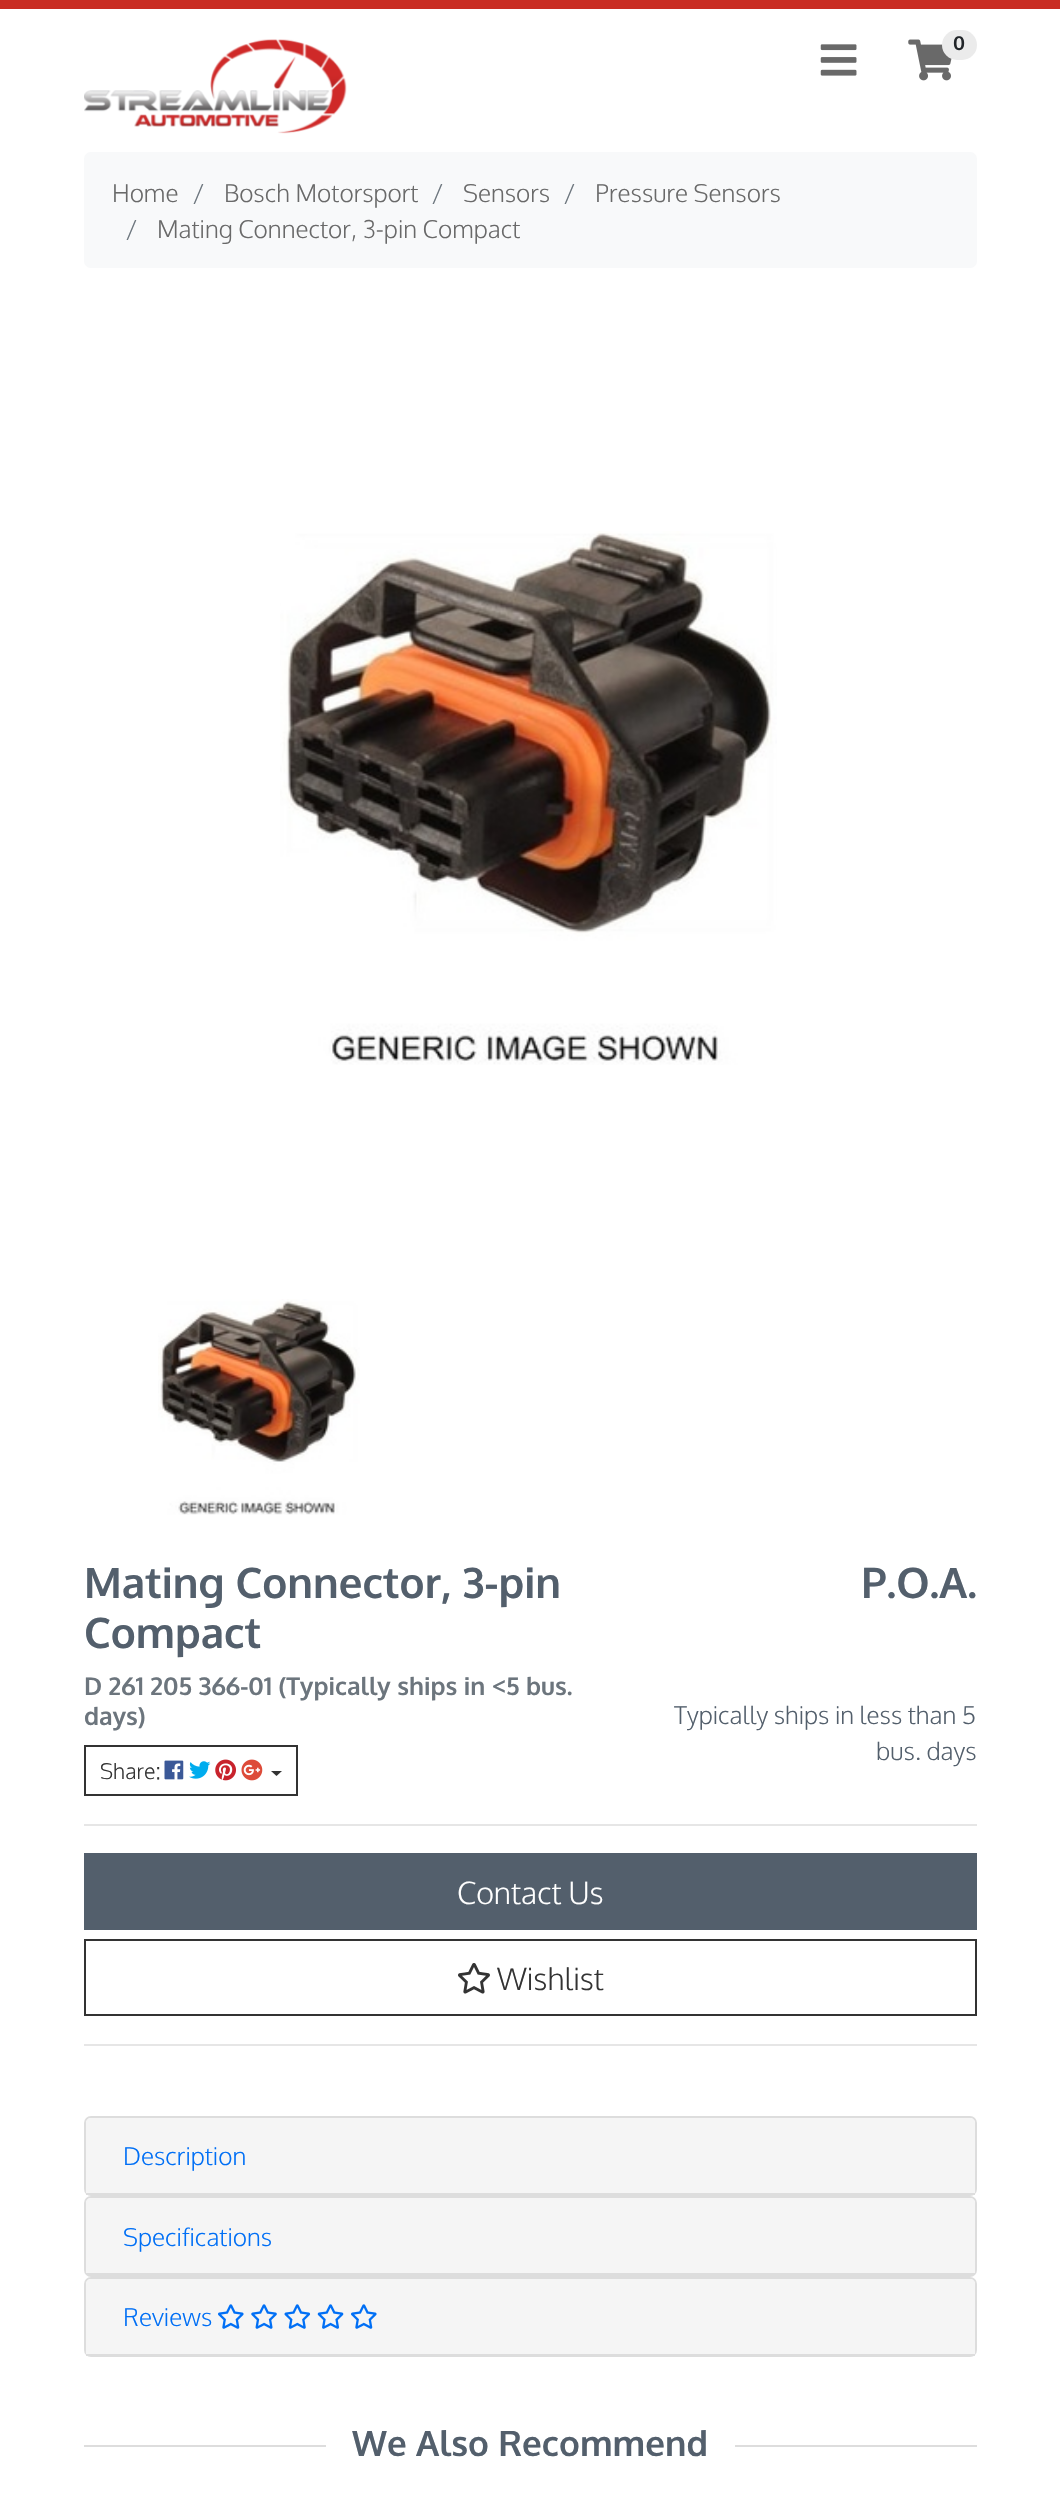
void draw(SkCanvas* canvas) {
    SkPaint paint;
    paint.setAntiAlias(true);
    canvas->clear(0xFFFFFFFF);
    paint.setColor(0xFFC92D23);
    canvas->drawRect(SkRect::MakeXYWH(0, 0, 1060, 9), paint);
    canvas->drawImageRect(SkImages::DeferredFromEncodedData(SkData::MakeFromFileName("img1.png")), SkRect::MakeXYWH(84, 39, 263, 95), SkSamplingOptions());
    canvas->drawImageRect(SkImages::DeferredFromEncodedData(SkData::MakeFromFileName("img2.png")), SkRect::MakeXYWH(820, 44, 37, 32), SkSamplingOptions());
    canvas->drawImageRect(SkImages::DeferredFromEncodedData(SkData::MakeFromFileName("img3.png")), SkRect::MakeXYWH(908, 39, 44, 42), SkSamplingOptions());
    paint.setColor(0xFFEBEBEB);
    canvas->drawRoundRect(SkRect::MakeXYWH(942, 30, 35, 30), 15, 15, paint);
    SkFont font1(fontMgr->matchFamilyStyle("Oxygen", SkFontStyle::Bold()), 19);
    font1.setSubpixel(true);
    paint.setColor(0xFF212529);
    canvas->drawString("0", 953, 50, font1, paint);
    paint.setColor(0xFFF8F9FA);
    canvas->drawRoundRect(SkRect::MakeXYWH(84, 152, 893, 116), 7, 7, paint);
    SkFont font2(fontMgr->matchFamilyStyle("Oxygen", SkFontStyle(300, SkFontStyle::kNormal_Width, SkFontStyle::kUpright_Slant)), 24.5f);
    font2.setSubpixel(true);
    paint.setColor(0xFF696969);
    canvas->drawString("Home", 112, 202, font2, paint);
    paint.setColor(0xFF6C757D);
    canvas->drawString("/", 193, 202, font2, paint);
    paint.setColor(0xFF696969);
    canvas->drawString("Bosch Motorsport", 224, 202, font2, paint);
    paint.setColor(0xFF6C757D);
    canvas->drawString("/", 432, 202, font2, paint);
    paint.setColor(0xFF696969);
    canvas->drawString("Sensors", 463, 202, font2, paint);
    paint.setColor(0xFF6C757D);
    canvas->drawString("/", 564, 202, font2, paint);
    paint.setColor(0xFF696969);
    canvas->drawString("Pressure Sensors", 595, 202, font2, paint);
    paint.setColor(0xFF6C757D);
    canvas->drawString("/", 126, 238, font2, paint);
    paint.setColor(0xFF696969);
    canvas->drawString("Mating Connector, 3-pin Compact", 157, 238, font2, paint);
    canvas->drawImageRect(SkImages::DeferredFromEncodedData(SkData::MakeFromFileName("img4.png")), SkRect::MakeXYWH(280, 531, 497, 534), SkSamplingOptions());
    canvas->drawImageRect(SkImages::DeferredFromEncodedData(SkData::MakeFromFileName("img5.png")), SkRect::MakeXYWH(158, 1299, 202, 216), SkSamplingOptions());
    SkFont font3(fontMgr->matchFamilyStyle("Oxygen", SkFontStyle::Bold()), 42);
    font3.setSubpixel(true);
    paint.setColor(0xFF535F6C);
    canvas->drawString("Mating Connector, 3-pin", 84, 1598, font3, paint);
    canvas->drawString("Compact", 84, 1648, font3, paint);
    SkFont font4(fontMgr->matchFamilyStyle("Oxygen", SkFontStyle::Bold()), 24.5f);
    font4.setSubpixel(true);
    paint.setColor(0xFF6C757D);
    canvas->drawString("D 261 205 366-01 (Typically ships in <5 bus.", 84, 1695, font4, paint);
    canvas->drawString("days)", 84, 1725, font4, paint);
    paint.setStyle(SkPaint::kStroke_Style);
    paint.setStrokeWidth(2);
    paint.setColor(0xFF333333);
    canvas->drawRect(SkRect::MakeXYWH(85, 1746, 212, 49), paint);
    SkFont font5(fontMgr->matchFamilyStyle("Oxygen", SkFontStyle(300, SkFontStyle::kNormal_Width, SkFontStyle::kUpright_Slant)), 21.5f);
    font5.setSubpixel(true);
    paint.setStyle(SkPaint::kFill_Style);
    canvas->drawString("Share:", 100, 1779, font5, paint);
    canvas->drawImageRect(SkImages::DeferredFromEncodedData(SkData::MakeFromFileName("img6.png")), SkRect::MakeXYWH(164, 1760, 20, 20), SkSamplingOptions());
    canvas->drawImageRect(SkImages::DeferredFromEncodedData(SkData::MakeFromFileName("img7.png")), SkRect::MakeXYWH(189, 1761, 22, 18), SkSamplingOptions());
    canvas->drawImageRect(SkImages::DeferredFromEncodedData(SkData::MakeFromFileName("img8.png")), SkRect::MakeXYWH(215, 1759, 21, 22), SkSamplingOptions());
    canvas->drawImageRect(SkImages::DeferredFromEncodedData(SkData::MakeFromFileName("img9.png")), SkRect::MakeXYWH(241, 1759, 22, 22), SkSamplingOptions());
    canvas->drawPath(SkPathBuilder().moveTo(271, 1771).lineTo(282, 1771).lineTo(276.5f, 1776).close().detach(), paint);
    paint.setColor(0xFF535F6C);
    canvas->drawString("P.O.A.", 861, 1598, font3, paint);
    canvas->drawString("Typically ships in less than 5", 674, 1724, font2, paint);
    canvas->drawString("bus. days", 876, 1760, font2, paint);
    paint.setColor(0xFFE6E6E6);
    canvas->drawRect(SkRect::MakeXYWH(84, 1824, 893, 2), paint);
    paint.setColor(0xFF535F6C);
    canvas->drawRect(SkRect::MakeXYWH(84, 1853, 893, 77), paint);
    SkFont font6(fontMgr->matchFamilyStyle("Oxygen", SkFontStyle(300, SkFontStyle::kNormal_Width, SkFontStyle::kUpright_Slant)), 30.5f);
    font6.setSubpixel(true);
    paint.setColor(0xFFFFFFFF);
    canvas->drawString("Contact Us", 457, 1904, font6, paint);
    paint.setStyle(SkPaint::kStroke_Style);
    paint.setColor(0xFF333333);
    canvas->drawRect(SkRect::MakeXYWH(85, 1940, 891, 75), paint);
    canvas->drawImageRect(SkImages::DeferredFromEncodedData(SkData::MakeFromFileName("img10.png")), SkRect::MakeXYWH(458, 1963, 32, 31), SkSamplingOptions());
    paint.setStyle(SkPaint::kFill_Style);
    canvas->drawString("Wishlist", 497, 1990, font6, paint);
    paint.setColor(0xFFE6E6E6);
    canvas->drawRect(SkRect::MakeXYWH(84, 2044, 893, 2), paint);
    paint.setStyle(SkPaint::kStroke_Style);
    paint.setColor(0xFFDDDDDD);
    canvas->drawRoundRect(SkRect::MakeXYWH(85, 2117, 891, 78), 6, 6, paint);
    paint.setStyle(SkPaint::kFill_Style);
    paint.setColor(0xFFF5F5F5);
    canvas->drawPath(SkPathBuilder().moveTo(91, 2118).lineTo(970, 2118).cubicTo(973, 2118, 975, 2120, 975, 2123).lineTo(975, 2195).lineTo(86, 2195).lineTo(86, 2123).cubicTo(86, 2120, 88, 2118, 91, 2118).close().detach(), paint);
    paint.setColor(0xFFDDDDDD);
    canvas->drawRect(SkRect::MakeXYWH(86, 2193, 889, 2), paint);
    paint.setColor(0xFF006FF5);
    canvas->drawString("Description", 123, 2165, font2, paint);
    paint.setStyle(SkPaint::kStroke_Style);
    paint.setColor(0xFFDDDDDD);
    canvas->drawRoundRect(SkRect::MakeXYWH(85, 2197, 891, 79), 6, 6, paint);
    paint.setStyle(SkPaint::kFill_Style);
    paint.setColor(0xFFF5F5F5);
    canvas->drawPath(SkPathBuilder().moveTo(91, 2198).lineTo(970, 2198).cubicTo(973, 2198, 975, 2200, 975, 2203).lineTo(975, 2275).lineTo(86, 2275).lineTo(86, 2203).cubicTo(86, 2200, 88, 2198, 91, 2198).close().detach(), paint);
    paint.setColor(0xFFDDDDDD);
    canvas->drawRect(SkRect::MakeXYWH(86, 2273, 889, 2), paint);
    paint.setColor(0xFF006FF5);
    canvas->drawString("Specifications", 123, 2246, font2, paint);
    paint.setStyle(SkPaint::kStroke_Style);
    paint.setColor(0xFFDDDDDD);
    canvas->drawRoundRect(SkRect::MakeXYWH(85, 2278, 891, 78), 6, 6, paint);
    paint.setStyle(SkPaint::kFill_Style);
    paint.setColor(0xFFF5F5F5);
    canvas->drawPath(SkPathBuilder().moveTo(91, 2279).lineTo(970, 2279).cubicTo(973, 2279, 975, 2281, 975, 2284).lineTo(975, 2356).lineTo(86, 2356).lineTo(86, 2284).cubicTo(86, 2281, 88, 2279, 91, 2279).close().detach(), paint);
    paint.setColor(0xFFDDDDDD);
    canvas->drawRect(SkRect::MakeXYWH(86, 2354, 889, 2), paint);
    paint.setColor(0xFF006FF5);
    canvas->drawString("Reviews", 123, 2326, font2, paint);
    canvas->drawImageRect(SkImages::DeferredFromEncodedData(SkData::MakeFromFileName("img11.png")), SkRect::MakeXYWH(218, 2304, 26, 25), SkSamplingOptions());
    canvas->drawImageRect(SkImages::DeferredFromEncodedData(SkData::MakeFromFileName("img12.png")), SkRect::MakeXYWH(251, 2304, 26, 25), SkSamplingOptions());
    canvas->drawImageRect(SkImages::DeferredFromEncodedData(SkData::MakeFromFileName("img13.png")), SkRect::MakeXYWH(284, 2304, 27, 25), SkSamplingOptions());
    canvas->drawImageRect(SkImages::DeferredFromEncodedData(SkData::MakeFromFileName("img14.png")), SkRect::MakeXYWH(317, 2304, 27, 25), SkSamplingOptions());
    canvas->drawImageRect(SkImages::DeferredFromEncodedData(SkData::MakeFromFileName("img11.png")), SkRect::MakeXYWH(351, 2304, 26, 25), SkSamplingOptions());
    paint.setColor(0xFFDDDDDD);
    canvas->drawRect(SkRect::MakeXYWH(84, 2445, 893, 2), paint);
    paint.setColor(0xFFFFFFFF);
    canvas->drawRect(SkRect::MakeXYWH(326, 2445, 409, 2), paint);
    SkFont font7(fontMgr->matchFamilyStyle("Oxygen", SkFontStyle::Bold()), 35);
    font7.setSubpixel(true);
    paint.setColor(0xFF535F6C);
    canvas->drawString("We Also Recommend", 352, 2456, font7, paint);
}
